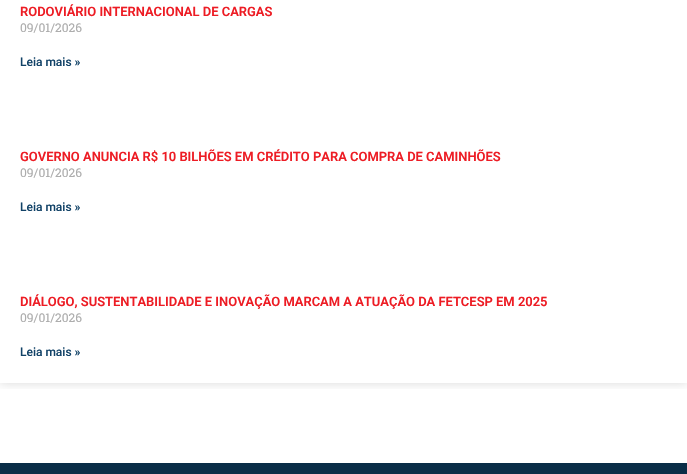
void draw(SkCanvas* canvas) {
    SkPaint paint;
    paint.setAntiAlias(true);
    canvas->clear(0xFFFFFFFF);
    canvas->save();
    canvas->clipRect(SkRect::MakeXYWH(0, 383, 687, 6));
    paint.setColor(0x26000000);
    paint.setMaskFilter(SkMaskFilter::MakeBlur(kNormal_SkBlurStyle, 5));
    canvas->drawRect(SkRect::MakeXYWH(0, -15, 687, 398), paint);
    paint.setMaskFilter(nullptr);
    canvas->restore();
    SkFont font1(fontMgr->matchFamilyStyle("Roboto", SkFontStyle(600, SkFontStyle::kNormal_Width, SkFontStyle::kUpright_Slant)), 12.95f);
    font1.setSubpixel(true);
    paint.setColor(0xFFED1C24);
    canvas->drawString("RODOVIÁRIO INTERNACIONAL DE CARGAS", 20, 16, font1, paint);
    SkFont font2(fontMgr->matchFamilyStyle("Roboto Slab", SkFontStyle::Normal()), 12);
    font2.setSubpixel(true);
    paint.setColor(0xFFADADAD);
    canvas->drawString("09/01/2026", 20, 32, font2, paint);
    SkFont font3(fontMgr->matchFamilyStyle("Roboto", SkFontStyle(500, SkFontStyle::kNormal_Width, SkFontStyle::kUpright_Slant)), 12);
    font3.setSubpixel(true);
    paint.setColor(0xFF114267);
    canvas->drawString("Leia mais »", 20, 66, font3, paint);
    paint.setColor(0xFFED1C24);
    canvas->drawString("GOVERNO ANUNCIA R$ 10 BILHÕES EM CRÉDITO PARA COMPRA DE CAMINHÕES", 20, 161, font1, paint);
    paint.setColor(0xFFADADAD);
    canvas->drawString("09/01/2026", 20, 177, font2, paint);
    paint.setColor(0xFF114267);
    canvas->drawString("Leia mais »", 20, 211, font3, paint);
    paint.setColor(0xFFED1C24);
    canvas->drawString("DIÁLOGO, SUSTENTABILIDADE E INOVAÇÃO MARCAM A ATUAÇÃO DA FETCESP EM 2025", 20, 306, font1, paint);
    paint.setColor(0xFFADADAD);
    canvas->drawString("09/01/2026", 20, 322, font2, paint);
    paint.setColor(0xFF114267);
    canvas->drawString("Leia mais »", 20, 356, font3, paint);
    paint.setColor(0xFF0A2D47);
    canvas->drawRect(SkRect::MakeXYWH(0, 463, 687, 11), paint);
}
